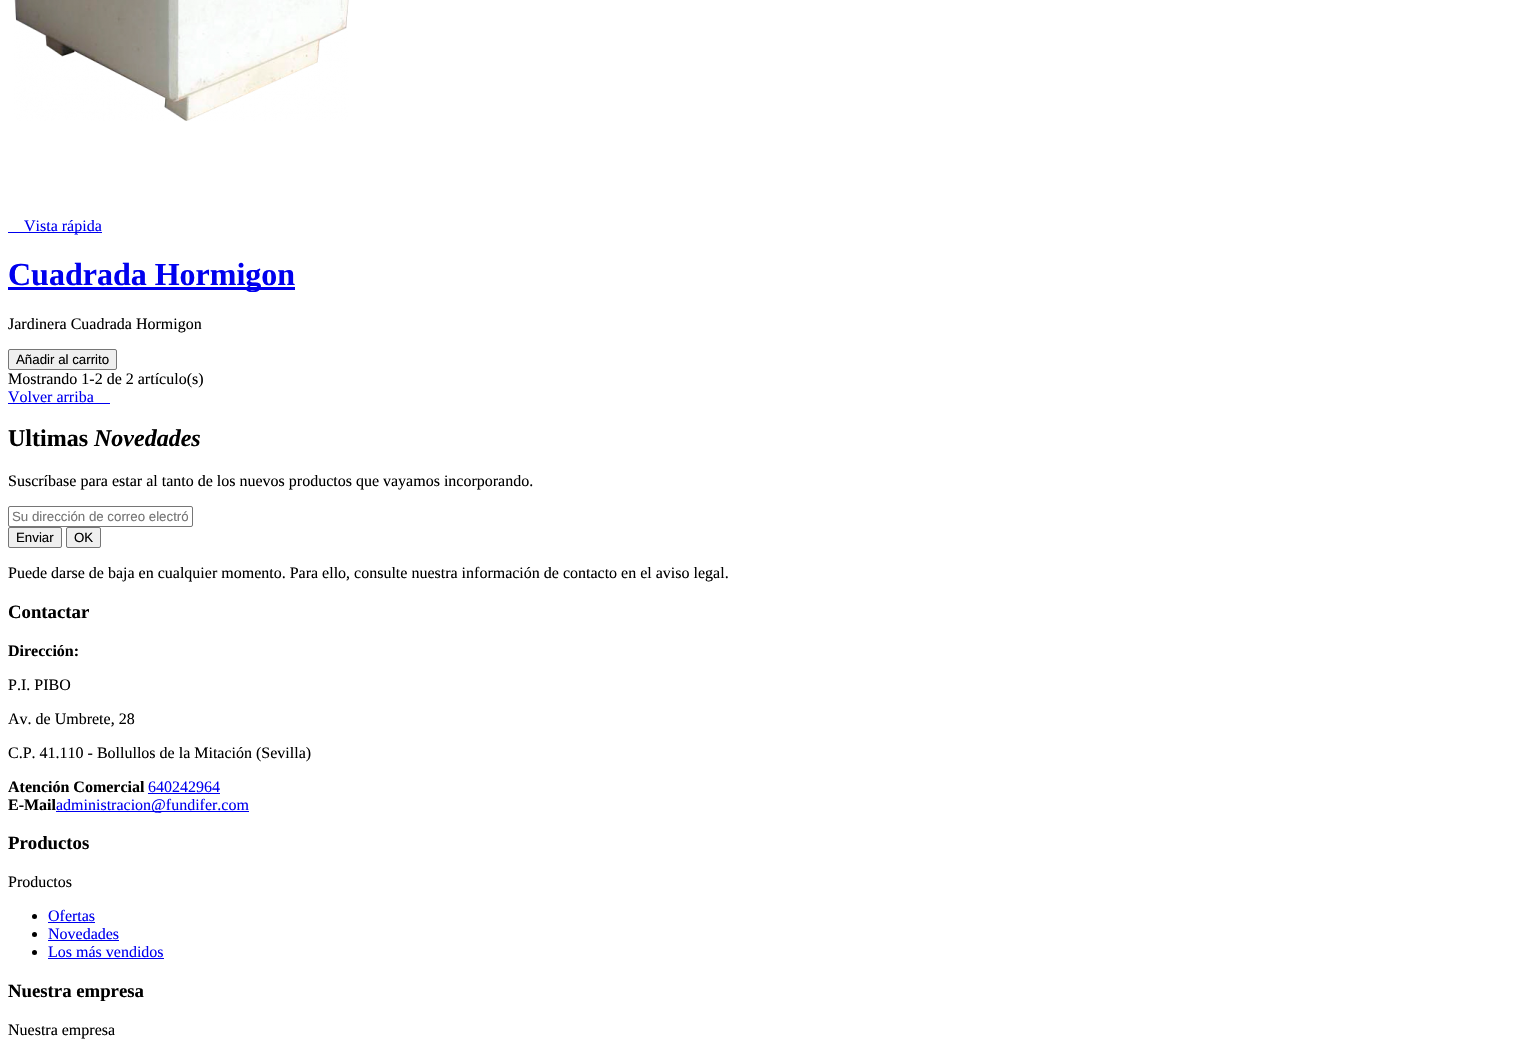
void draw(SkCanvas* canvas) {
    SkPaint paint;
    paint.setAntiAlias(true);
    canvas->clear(0xFFFFFFFF);
    canvas->drawImageRect(SkImages::DeferredFromEncodedData(SkData::MakeFromFileName("img1.png")), SkRect::MakeXYWH(14, 0, 335, 121), SkSamplingOptions());
    paint.setColor(0xFF0000EE);
    canvas->drawRect(SkRect::MakeXYWH(8, 232, 94, 1), paint);
    SkFont font1(fontMgr->matchFamilyStyle("Liberation Serif", SkFontStyle::Normal()), 16);
    font1.setSubpixel(true);
    canvas->drawString("Vista rápida", 24, 231, font1, paint);
    canvas->drawRect(SkRect::MakeXYWH(8, 287, 287, 3), paint);
    SkFont font2(fontMgr->matchFamilyStyle("Liberation Serif", SkFontStyle::Bold()), 32);
    font2.setSubpixel(true);
    canvas->drawString("Cuadrada Hormigon", 8, 285, font2, paint);
    paint.setColor(0xFF000000);
    canvas->drawString("Jardinera Cuadrada Hormigon", 8, 329, font1, paint);
    paint.setColor(0xFFEFEFEF);
    canvas->drawRoundRect(SkRect::MakeXYWH(8.5f, 349.5f, 108, 20), 1.5f, 1.5f, paint);
    paint.setStyle(SkPaint::kStroke_Style);
    paint.setStrokeWidth(1);
    paint.setColor(0xFF767676);
    canvas->drawRoundRect(SkRect::MakeXYWH(8.5f, 349.5f, 108, 20), 1.5f, 1.5f, paint);
    SkFont font3(fontMgr->matchFamilyStyle("Liberation Sans", SkFontStyle::Normal()), 13.3f);
    font3.setSubpixel(true);
    paint.setStyle(SkPaint::kFill_Style);
    paint.setColor(0xFF000000);
    canvas->drawString("Añadir al carrito", 16, 364, font3, paint);
    canvas->drawString("Mostrando 1-2 de 2 artículo(s)", 8, 384, font1, paint);
    paint.setColor(0xFF0000EE);
    canvas->drawString("Volver arriba", 8, 402, font1, paint);
    canvas->drawRect(SkRect::MakeXYWH(8, 403, 102, 1), paint);
    SkFont font4(fontMgr->matchFamilyStyle("Liberation Serif", SkFontStyle::Bold()), 24);
    font4.setSubpixel(true);
    paint.setColor(0xFF000000);
    canvas->drawString("Ultimas", 8, 446, font4, paint);
    SkFont font5(fontMgr->matchFamilyStyle("Liberation Serif", SkFontStyle::BoldItalic()), 24);
    font5.setSubpixel(true);
    canvas->drawString("Novedades", 94, 446, font5, paint);
    canvas->drawString("Suscríbase para estar al tanto de los nuevos productos que vayamos incorporando.", 8, 486, font1, paint);
    paint.setStyle(SkPaint::kStroke_Style);
    paint.setColor(0xFF767676);
    canvas->drawRoundRect(SkRect::MakeXYWH(8.5f, 506.5f, 184, 20), 1.5f, 1.5f, paint);
    paint.setStyle(SkPaint::kFill_Style);
    paint.setColor(0xFF757575);
    canvas->drawString("Su dirección de correo electró", 12, 521, font3, paint);
    paint.setColor(0xFFEFEFEF);
    canvas->drawRoundRect(SkRect::MakeXYWH(8.5f, 527.5f, 53, 20), 1.5f, 1.5f, paint);
    paint.setStyle(SkPaint::kStroke_Style);
    paint.setColor(0xFF767676);
    canvas->drawRoundRect(SkRect::MakeXYWH(8.5f, 527.5f, 53, 20), 1.5f, 1.5f, paint);
    paint.setStyle(SkPaint::kFill_Style);
    paint.setColor(0xFF000000);
    canvas->drawString("Enviar", 16, 542, font3, paint);
    paint.setColor(0xFFEFEFEF);
    canvas->drawRoundRect(SkRect::MakeXYWH(66.5f, 527.5f, 34, 20), 1.5f, 1.5f, paint);
    paint.setStyle(SkPaint::kStroke_Style);
    paint.setColor(0xFF767676);
    canvas->drawRoundRect(SkRect::MakeXYWH(66.5f, 527.5f, 34, 20), 1.5f, 1.5f, paint);
    paint.setStyle(SkPaint::kFill_Style);
    paint.setColor(0xFF000000);
    canvas->drawString("OK", 74, 542, font3, paint);
    canvas->drawString("Puede darse de baja en cualquier momento. Para ello, consulte nuestra información de contacto en el aviso legal.", 8, 578, font1, paint);
    SkFont font6(fontMgr->matchFamilyStyle("Liberation Serif", SkFontStyle::Bold()), 18.75f);
    font6.setSubpixel(true);
    canvas->drawString("Contactar", 8, 618, font6, paint);
    SkFont font7(fontMgr->matchFamilyStyle("Liberation Serif", SkFontStyle::Bold()), 16);
    font7.setSubpixel(true);
    canvas->drawString("Dirección:", 8, 656, font7, paint);
    canvas->drawString("P.I. PIBO", 8, 690, font1, paint);
    canvas->drawString("Av. de Umbrete, 28", 8, 724, font1, paint);
    canvas->drawString("C.P. 41.110 - Bollullos de la Mitación (Sevilla)", 8, 758, font1, paint);
    canvas->drawString("Atención Comercial", 8, 792, font7, paint);
    paint.setColor(0xFF0000EE);
    canvas->drawString("640242964", 148, 792, font1, paint);
    canvas->drawRect(SkRect::MakeXYWH(148, 793, 72, 1), paint);
    paint.setColor(0xFF000000);
    canvas->drawString("E-Mail", 8, 810, font7, paint);
    paint.setColor(0xFF0000EE);
    canvas->drawRect(SkRect::MakeXYWH(56, 811, 193, 1), paint);
    canvas->drawString("administracion@fundifer.com", 56, 810, font1, paint);
    paint.setColor(0xFF000000);
    canvas->drawString("Productos", 8, 849, font6, paint);
    canvas->drawString("Productos", 8, 887, font1, paint);
    canvas->drawCircle(34.5f, 916.5f, 2.5f, paint);
    paint.setColor(0xFF0000EE);
    canvas->drawString("Ofertas", 48, 921, font1, paint);
    canvas->drawRect(SkRect::MakeXYWH(48, 922, 47, 1), paint);
    paint.setColor(0xFF000000);
    canvas->drawCircle(34.5f, 934.5f, 2.5f, paint);
    paint.setColor(0xFF0000EE);
    canvas->drawString("Novedades", 48, 939, font1, paint);
    canvas->drawRect(SkRect::MakeXYWH(48, 940, 71, 1), paint);
    paint.setColor(0xFF000000);
    canvas->drawCircle(34.5f, 952.5f, 2.5f, paint);
    paint.setColor(0xFF0000EE);
    canvas->drawString("Los más vendidos", 48, 957, font1, paint);
    canvas->drawRect(SkRect::MakeXYWH(48, 958, 116, 1), paint);
    paint.setColor(0xFF000000);
    canvas->drawString("Nuestra empresa", 8, 997, font6, paint);
    canvas->drawString("Nuestra empresa", 8, 1035, font1, paint);
}
